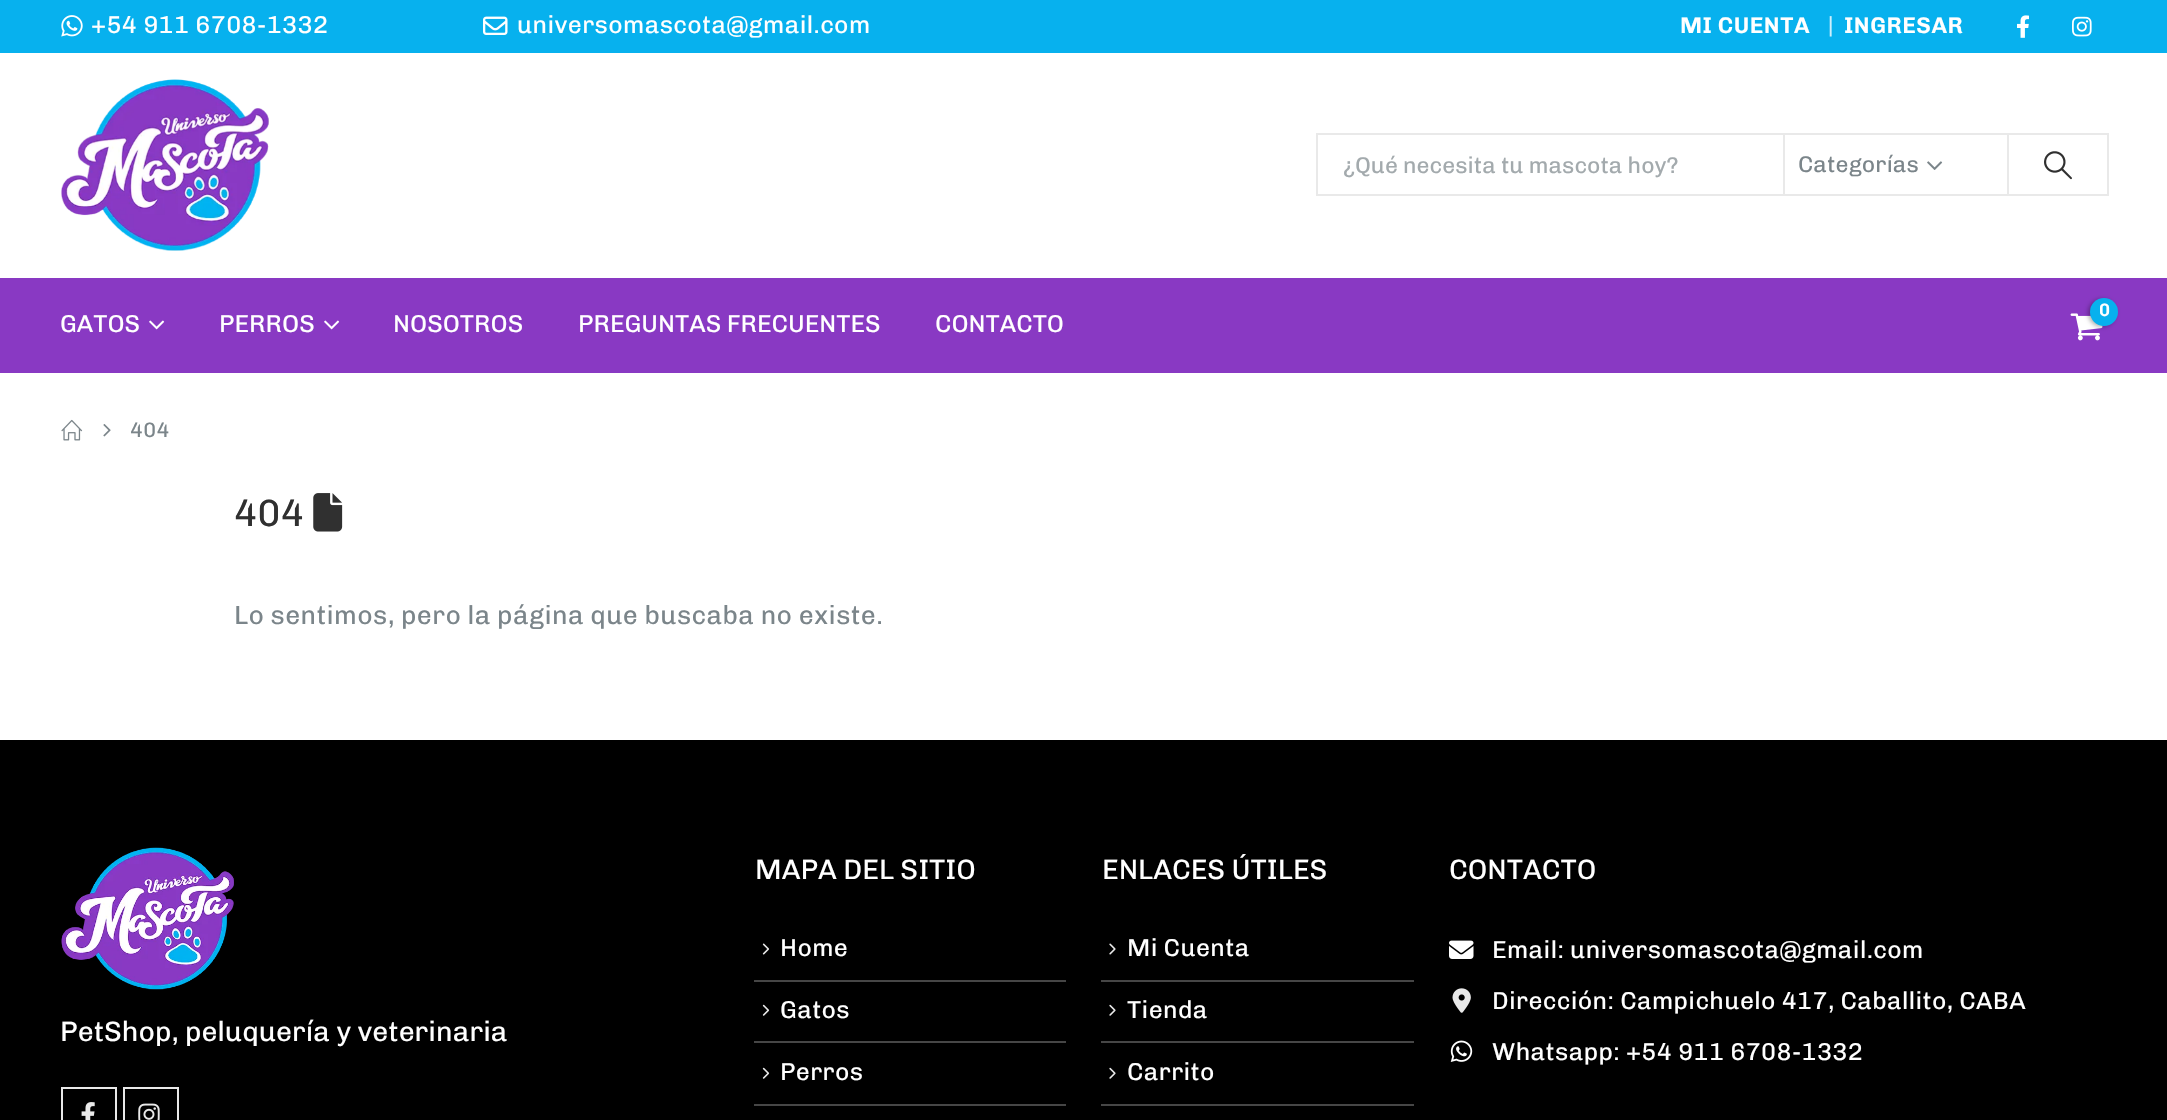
void draw(SkCanvas* canvas) {
    SkPaint paint;
    paint.setAntiAlias(true);
    auto spacedText = [&](const char* s, float x, float y, const SkFont& font, const SkPaint& ink, float letter, float word) {
        std::vector<SkGlyphID> glyphs(font.countText(s, strlen(s), SkTextEncoding::kUTF8));
        std::vector<float> xs(glyphs.size());
        font.textToGlyphs(s, strlen(s), SkTextEncoding::kUTF8, glyphs);
        font.getXPos(glyphs, xs, x);
        float extra = 0;
        for (size_t i = 0; i < glyphs.size(); i++) {
            xs[i] += extra;
            extra += letter + word * (glyphs[i] == font.unicharToGlyph(' '));
        }
        canvas->drawTextBlob(SkTextBlob::MakeFromPosHGlyphs(glyphs, xs, y, font), 0, 0, ink);
    };
    canvas->clear(0xFFFFFFFF);
    paint.setColor(0xFF07B1EE);
    canvas->drawRect(SkRect::MakeXYWH(0, 0, 2167, 53), paint);
    canvas->drawImageRect(SkImages::DeferredFromEncodedData(SkData::MakeFromFileName("img1.png")), SkRect::MakeXYWH(61, 15, 22, 22), SkSamplingOptions());
    SkFont font1(fontMgr->matchFamilyStyle("Chivo", SkFontStyle::Normal()), 24.5f);
    font1.setSubpixel(true);
    paint.setColor(0xFFFFFFFF);
    spacedText("+54 911 6708-1332", 91, 33, font1, paint, 0.35f, 0);
    canvas->drawImageRect(SkImages::DeferredFromEncodedData(SkData::MakeFromFileName("img2.png")), SkRect::MakeXYWH(483, 16, 25, 19), SkSamplingOptions());
    spacedText("universomascota@gmail.com", 517, 33, font1, paint, 0.35f, 0);
    SkFont font2(fontMgr->matchFamilyStyle("Chivo", SkFontStyle(600, SkFontStyle::kNormal_Width, SkFontStyle::kUpright_Slant)), 22.75f);
    font2.setSubpixel(true);
    spacedText("MI CUENTA", 1680, 33, font2, paint, 0.5f, 0);
    SkFont font3(fontMgr->matchFamilyStyle("Chivo", SkFontStyle::Normal()), 22);
    font3.setSubpixel(true);
    paint.setColor(0xFFCDEFFC);
    spacedText("|", 1828, 32, font3, paint, 0.35f, 0);
    paint.setColor(0xFFFFFFFF);
    spacedText("INGRESAR", 1844, 33, font2, paint, 0.5f, 0);
    canvas->drawImageRect(SkImages::DeferredFromEncodedData(SkData::MakeFromFileName("img3.png")), SkRect::MakeXYWH(2017, 15, 12, 23), SkSamplingOptions());
    canvas->drawImageRect(SkImages::DeferredFromEncodedData(SkData::MakeFromFileName("img4.png")), SkRect::MakeXYWH(2072, 16, 20, 21), SkSamplingOptions());
    canvas->drawImageRect(SkImages::DeferredFromEncodedData(SkData::MakeFromFileName("img5.png")), SkRect::MakeXYWH(61, 79, 208, 172), SkSamplingOptions());
    paint.setStyle(SkPaint::kStroke_Style);
    paint.setStrokeWidth(2);
    paint.setColor(0xFFE9E9E9);
    canvas->drawRect(SkRect::MakeXYWH(1317, 134, 791, 61), paint);
    SkFont font4(fontMgr->matchFamilyStyle("Chivo", SkFontStyle::Normal()), 22.75f);
    font4.setSubpixel(true);
    paint.setStyle(SkPaint::kFill_Style);
    paint.setColor(0xFFA3AAAD);
    canvas->drawString("¿Qué necesita tu mascota hoy?", 1343, 173, font4, paint);
    paint.setColor(0xFFE9E9E9);
    canvas->drawRect(SkRect::MakeXYWH(2007, 135, 2, 59), paint);
    canvas->drawRect(SkRect::MakeXYWH(1783, 135, 2, 59), paint);
    paint.setColor(0xFF7B858A);
    spacedText("Categorías", 1798, 172, font4, paint, 0.1f, 0);
    canvas->drawImageRect(SkImages::DeferredFromEncodedData(SkData::MakeFromFileName("img6.png")), SkRect::MakeXYWH(1927, 161, 16, 9), SkSamplingOptions());
    canvas->drawImageRect(SkImages::DeferredFromEncodedData(SkData::MakeFromFileName("img7.png")), SkRect::MakeXYWH(2044, 151, 28, 29), SkSamplingOptions());
    paint.setColor(0xFF8939C3);
    canvas->drawRect(SkRect::MakeXYWH(0, 278, 2167, 95), paint);
    canvas->drawImageRect(SkImages::DeferredFromEncodedData(SkData::MakeFromFileName("img8.png")), SkRect::MakeXYWH(2070, 313, 33, 28), SkSamplingOptions());
    paint.setColor(0x4D000000);
    paint.setMaskFilter(SkMaskFilter::MakeBlur(kNormal_SkBlurStyle, 2));
    canvas->drawRoundRect(SkRect::MakeXYWH(2088, 299, 28, 28), 14, 14, paint);
    paint.setMaskFilter(nullptr);
    paint.setColor(0xFF07B1EE);
    canvas->drawCircle(2104, 312, 14, paint);
    SkFont font5(fontMgr->matchFamilyStyle("Chivo", SkFontStyle(600, SkFontStyle::kNormal_Width, SkFontStyle::kUpright_Slant)), 18);
    font5.setSubpixel(true);
    paint.setColor(0xFFFFFFFF);
    spacedText("0", 2099, 316, font5, paint, 0.35f, 0);
    canvas->drawString("GATOS", 60, 332, font1, paint);
    canvas->drawImageRect(SkImages::DeferredFromEncodedData(SkData::MakeFromFileName("img9.png")), SkRect::MakeXYWH(149, 320, 16, 10), SkSamplingOptions());
    canvas->drawString("PERROS", 219, 332, font1, paint);
    canvas->drawImageRect(SkImages::DeferredFromEncodedData(SkData::MakeFromFileName("img9.png")), SkRect::MakeXYWH(324, 320, 16, 10), SkSamplingOptions());
    canvas->drawString("NOSOTROS", 393, 332, font1, paint);
    canvas->drawString("PREGUNTAS FRECUENTES", 578, 332, font1, paint);
    canvas->drawString("CONTACTO", 935, 332, font1, paint);
    canvas->drawImageRect(SkImages::DeferredFromEncodedData(SkData::MakeFromFileName("img10.png")), SkRect::MakeXYWH(61, 419, 22, 22), SkSamplingOptions());
    canvas->drawImageRect(SkImages::DeferredFromEncodedData(SkData::MakeFromFileName("img11.png")), SkRect::MakeXYWH(103, 424, 8, 13), SkSamplingOptions());
    SkFont font6(fontMgr->matchFamilyStyle("Chivo", SkFontStyle::Normal()), 21);
    font6.setSubpixel(true);
    paint.setColor(0xFF7B858A);
    spacedText("404", 130, 437, font6, paint, 0.35f, 0);
    SkFont font7(fontMgr->matchFamilyStyle("Chivo", SkFontStyle::Normal()), 38);
    font7.setSubpixel(true);
    paint.setColor(0xFF303030);
    canvas->drawString("404", 234, 526, font7, paint);
    canvas->drawImageRect(SkImages::DeferredFromEncodedData(SkData::MakeFromFileName("img12.png")), SkRect::MakeXYWH(313, 493, 30, 39), SkSamplingOptions());
    SkFont font8(fontMgr->matchFamilyStyle("Chivo", SkFontStyle::Normal()), 26.25f);
    font8.setSubpixel(true);
    paint.setColor(0xFF7B858A);
    spacedText("Lo sentimos, pero la página que buscaba no existe.", 234, 624, font8, paint, 0.35f, 0);
    paint.setColor(0xFF000000);
    canvas->drawRect(SkRect::MakeXYWH(0, 740, 2167, 380), paint);
    canvas->drawImageRect(SkImages::DeferredFromEncodedData(SkData::MakeFromFileName("img13.png")), SkRect::MakeXYWH(61, 847, 173, 143), SkSamplingOptions());
    SkFont font9(fontMgr->matchFamilyStyle("Chivo", SkFontStyle::Normal()), 28);
    font9.setSubpixel(true);
    paint.setColor(0xFFFFFFFF);
    canvas->drawString("PetShop, peluquería y veterinaria", 60, 1041, font9, paint);
    paint.setStyle(SkPaint::kStroke_Style);
    paint.setColor(0xFFE9E9E9);
    canvas->drawRect(SkRect::MakeXYWH(62, 1088, 54, 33), paint);
    canvas->drawImageRect(SkImages::DeferredFromEncodedData(SkData::MakeFromFileName("img14.png")), SkRect::MakeXYWH(81, 1102, 14, 18), SkSamplingOptions());
    canvas->drawRect(SkRect::MakeXYWH(124, 1088, 54, 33), paint);
    canvas->drawImageRect(SkImages::DeferredFromEncodedData(SkData::MakeFromFileName("img15.png")), SkRect::MakeXYWH(138, 1103, 22, 17), SkSamplingOptions());
    paint.setStyle(SkPaint::kFill_Style);
    paint.setColor(0xFFFFFFFF);
    canvas->drawString("MAPA DEL SITIO", 755, 879, font9, paint);
    canvas->drawImageRect(SkImages::DeferredFromEncodedData(SkData::MakeFromFileName("img16.png")), SkRect::MakeXYWH(762, 943, 8, 12), SkSamplingOptions());
    spacedText("Home", 780, 956, font1, paint, 0.35f, 0);
    paint.setColor(0xFF464646);
    canvas->drawRect(SkRect::MakeXYWH(754, 980, 312, 2), paint);
    canvas->drawImageRect(SkImages::DeferredFromEncodedData(SkData::MakeFromFileName("img17.png")), SkRect::MakeXYWH(762, 1004, 8, 12), SkSamplingOptions());
    paint.setColor(0xFFFFFFFF);
    spacedText("Gatos", 780, 1018, font1, paint, 0.35f, 0);
    paint.setColor(0xFF464646);
    canvas->drawRect(SkRect::MakeXYWH(754, 1041, 312, 2), paint);
    canvas->drawImageRect(SkImages::DeferredFromEncodedData(SkData::MakeFromFileName("img17.png")), SkRect::MakeXYWH(762, 1067, 8, 12), SkSamplingOptions());
    paint.setColor(0xFFFFFFFF);
    spacedText("Perros", 780, 1080, font1, paint, 0.35f, 0);
    paint.setColor(0xFF464646);
    canvas->drawRect(SkRect::MakeXYWH(754, 1104, 312, 2), paint);
    paint.setColor(0xFFFFFFFF);
    canvas->drawString("ENLACES ÚTILES", 1102, 879, font9, paint);
    canvas->drawImageRect(SkImages::DeferredFromEncodedData(SkData::MakeFromFileName("img18.png")), SkRect::MakeXYWH(1109, 943, 7, 12), SkSamplingOptions());
    spacedText("Mi Cuenta", 1127, 956, font1, paint, 0.35f, 0);
    paint.setColor(0xFF464646);
    canvas->drawRect(SkRect::MakeXYWH(1101, 980, 313, 2), paint);
    canvas->drawImageRect(SkImages::DeferredFromEncodedData(SkData::MakeFromFileName("img19.png")), SkRect::MakeXYWH(1109, 1004, 7, 12), SkSamplingOptions());
    paint.setColor(0xFFFFFFFF);
    spacedText("Tienda", 1127, 1018, font1, paint, 0.35f, 0);
    paint.setColor(0xFF464646);
    canvas->drawRect(SkRect::MakeXYWH(1101, 1041, 313, 2), paint);
    canvas->drawImageRect(SkImages::DeferredFromEncodedData(SkData::MakeFromFileName("img19.png")), SkRect::MakeXYWH(1109, 1067, 7, 12), SkSamplingOptions());
    paint.setColor(0xFFFFFFFF);
    spacedText("Carrito", 1127, 1080, font1, paint, 0.35f, 0);
    paint.setColor(0xFF464646);
    canvas->drawRect(SkRect::MakeXYWH(1101, 1104, 313, 2), paint);
    paint.setColor(0xFFFFFFFF);
    canvas->drawString("CONTACTO", 1449, 879, font9, paint);
    canvas->drawImageRect(SkImages::DeferredFromEncodedData(SkData::MakeFromFileName("img20.png")), SkRect::MakeXYWH(1449, 940, 25, 19), SkSamplingOptions());
    spacedText("Email: universomascota@gmail.com", 1492, 958, font1, paint, 0.35f, 0);
    canvas->drawImageRect(SkImages::DeferredFromEncodedData(SkData::MakeFromFileName("img21.png")), SkRect::MakeXYWH(1452, 988, 19, 25), SkSamplingOptions());
    spacedText("Dirección: Campichuelo 417, Caballito, CABA", 1492, 1009, font1, paint, 0.35f, 0);
    canvas->drawImageRect(SkImages::DeferredFromEncodedData(SkData::MakeFromFileName("img22.png")), SkRect::MakeXYWH(1450, 1040, 23, 22), SkSamplingOptions());
    spacedText("Whatsapp: +54 911 6708-1332", 1492, 1060, font1, paint, 0.35f, 0);
}
